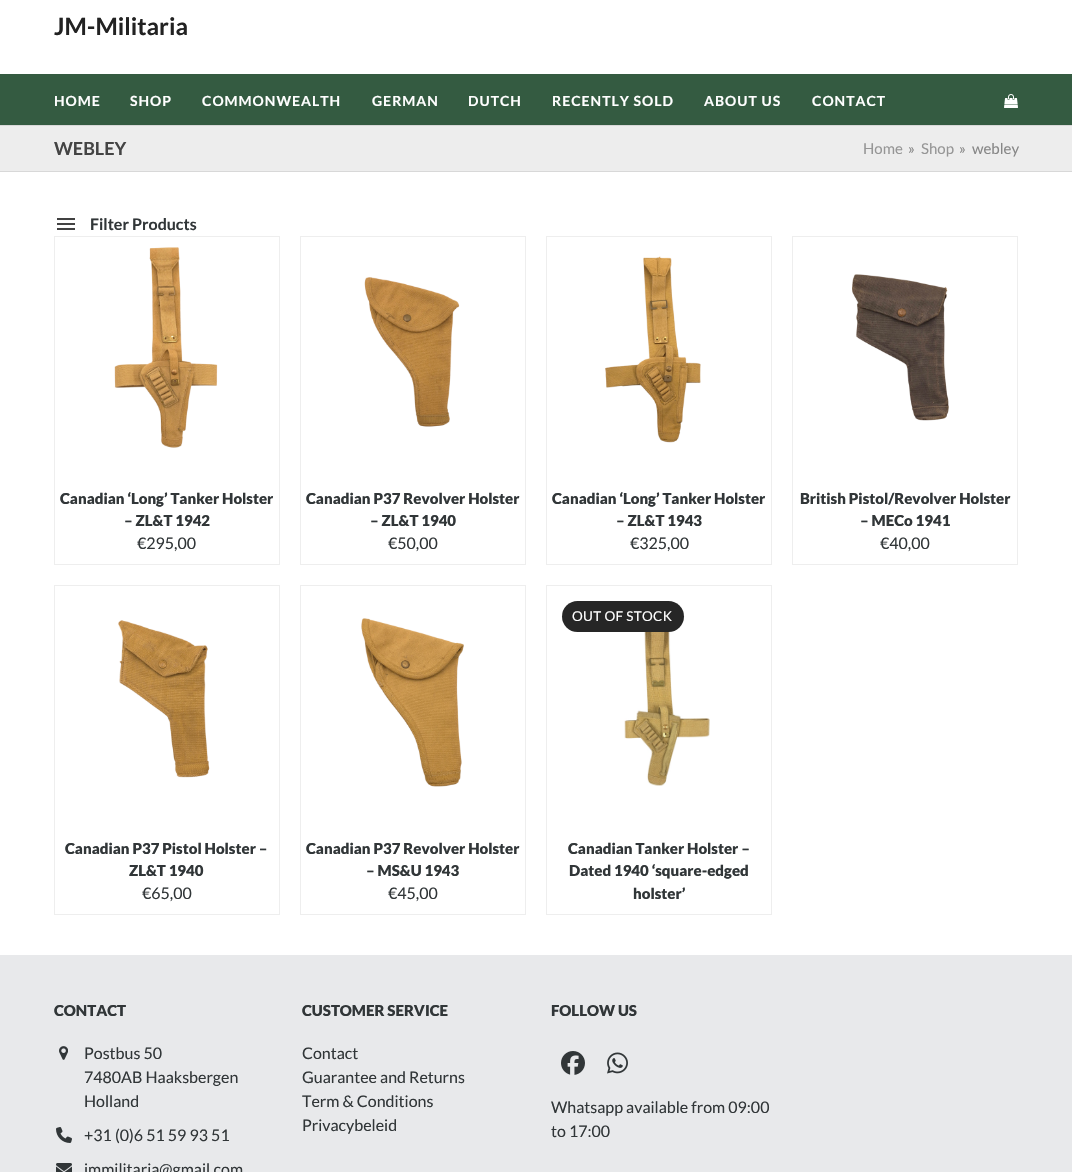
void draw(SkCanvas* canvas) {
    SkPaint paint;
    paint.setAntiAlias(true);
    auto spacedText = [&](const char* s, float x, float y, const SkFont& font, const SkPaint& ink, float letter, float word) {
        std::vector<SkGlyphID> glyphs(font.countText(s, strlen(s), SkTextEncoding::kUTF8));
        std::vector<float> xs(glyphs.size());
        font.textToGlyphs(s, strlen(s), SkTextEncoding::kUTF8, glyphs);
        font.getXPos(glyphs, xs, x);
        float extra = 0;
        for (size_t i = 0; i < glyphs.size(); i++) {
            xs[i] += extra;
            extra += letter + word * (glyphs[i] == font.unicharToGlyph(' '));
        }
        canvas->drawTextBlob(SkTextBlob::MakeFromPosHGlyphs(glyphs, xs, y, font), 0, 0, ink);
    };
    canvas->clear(0xFFFFFFFF);
    SkFont font1(fontMgr->matchFamilyStyle("Lato", SkFontStyle::Bold()), 24);
    font1.setSubpixel(true);
    paint.setColor(0xFF222222);
    canvas->drawString("JM-Militaria", 54, 35, font1, paint);
    paint.setColor(0xFF345B41);
    canvas->drawRect(SkRect::MakeXYWH(0, 74, 1072, 51), paint);
    SkFont font2(fontMgr->matchFamilyStyle("Lato", SkFontStyle::Bold()), 14);
    font2.setSubpixel(true);
    paint.setColor(0xFFFFFFFF);
    spacedText("HOME", 54, 106, font2, paint, 1, 0);
    spacedText("SHOP", 130, 106, font2, paint, 1, 0);
    spacedText("COMMONWEALTH", 202, 106, font2, paint, 1, 0);
    spacedText("GERMAN", 372, 106, font2, paint, 1, 0);
    spacedText("DUTCH", 468, 106, font2, paint, 1, 0);
    spacedText("RECENTLY SOLD", 552, 106, font2, paint, 1, 0);
    spacedText("ABOUT US", 704, 106, font2, paint, 1, 0);
    spacedText("CONTACT", 812, 106, font2, paint, 1, 0);
    canvas->drawImageRect(SkImages::DeferredFromEncodedData(SkData::MakeFromFileName("img1.png")), SkRect::MakeXYWH(1004, 94, 14, 14), SkSamplingOptions());
    paint.setColor(0xFFEDEDED);
    canvas->drawRect(SkRect::MakeXYWH(0, 126, 1072, 45), paint);
    paint.setColor(0xFFD8D8D8);
    canvas->drawRect(SkRect::MakeXYWH(0, 125, 1072, 1), paint);
    canvas->drawRect(SkRect::MakeXYWH(0, 171, 1072, 1), paint);
    SkFont font3(fontMgr->matchFamilyStyle("Lato", SkFontStyle::Bold()), 18);
    font3.setSubpixel(true);
    paint.setColor(0xFF444444);
    canvas->drawString("WEBLEY", 54, 155, font3, paint);
    SkFont font4(fontMgr->matchFamilyStyle("Lato", SkFontStyle::Normal()), 15);
    font4.setSubpixel(true);
    paint.setColor(0xFF969696);
    canvas->drawString("Home", 863, 154, font4, paint);
    paint.setColor(0xFF878787);
    canvas->drawString("»", 908, 154, font4, paint);
    paint.setColor(0xFF969696);
    canvas->drawString("Shop", 921, 154, font4, paint);
    paint.setColor(0xFF878787);
    canvas->drawString("»", 959, 154, font4, paint);
    canvas->drawString("webley", 972, 154, font4, paint);
    canvas->drawImageRect(SkImages::DeferredFromEncodedData(SkData::MakeFromFileName("img2.png")), SkRect::MakeXYWH(57, 218, 18, 12), SkSamplingOptions());
    SkFont font5(fontMgr->matchFamilyStyle("Lato", SkFontStyle::Bold()), 16);
    font5.setSubpixel(true);
    paint.setColor(0xFF313638);
    canvas->drawString("Filter Products", 90, 230, font5, paint);
    paint.setStyle(SkPaint::kStroke_Style);
    paint.setStrokeWidth(1);
    paint.setColor(0xFFEEEEEE);
    canvas->drawRect(SkRect::MakeXYWH(54.5f, 236.5f, 225, 328), paint);
    canvas->drawImageRect(SkImages::DeferredFromEncodedData(SkData::MakeFromFileName("img3.png")), SkRect::MakeXYWH(114, 247, 104, 201), SkSamplingOptions());
    SkFont font6(fontMgr->matchFamilyStyle("Lato", SkFontStyle(900, SkFontStyle::kNormal_Width, SkFontStyle::kUpright_Slant)), 15);
    font6.setSubpixel(true);
    paint.setStyle(SkPaint::kFill_Style);
    paint.setColor(0xFF313638);
    canvas->drawString("Canadian ‘Long’ Tanker Holster", 60, 504, font6, paint);
    canvas->drawString("– ZL&T 1942", 124, 526, font6, paint);
    SkFont font7(fontMgr->matchFamilyStyle("Lato", SkFontStyle::Normal()), 16);
    font7.setSubpixel(true);
    canvas->drawString("€295,00", 137, 549, font7, paint);
    paint.setStyle(SkPaint::kStroke_Style);
    paint.setColor(0xFFEEEEEE);
    canvas->drawRect(SkRect::MakeXYWH(300.5f, 236.5f, 225, 328), paint);
    canvas->drawImageRect(SkImages::DeferredFromEncodedData(SkData::MakeFromFileName("img4.png")), SkRect::MakeXYWH(364, 277, 96, 150), SkSamplingOptions());
    paint.setStyle(SkPaint::kFill_Style);
    paint.setColor(0xFF313638);
    canvas->drawString("Canadian P37 Revolver Holster", 306, 504, font6, paint);
    canvas->drawString("– ZL&T 1940", 370, 526, font6, paint);
    canvas->drawString("€50,00", 388, 549, font7, paint);
    paint.setStyle(SkPaint::kStroke_Style);
    paint.setColor(0xFFEEEEEE);
    canvas->drawRect(SkRect::MakeXYWH(546.5f, 236.5f, 225, 328), paint);
    canvas->drawImageRect(SkImages::DeferredFromEncodedData(SkData::MakeFromFileName("img5.png")), SkRect::MakeXYWH(605, 256, 96, 187), SkSamplingOptions());
    paint.setStyle(SkPaint::kFill_Style);
    paint.setColor(0xFF313638);
    canvas->drawString("Canadian ‘Long’ Tanker Holster", 552, 504, font6, paint);
    canvas->drawString("– ZL&T 1943", 616, 526, font6, paint);
    canvas->drawString("€325,00", 630, 549, font7, paint);
    paint.setStyle(SkPaint::kStroke_Style);
    paint.setColor(0xFFEEEEEE);
    canvas->drawRect(SkRect::MakeXYWH(792.5f, 236.5f, 225, 328), paint);
    canvas->drawImageRect(SkImages::DeferredFromEncodedData(SkData::MakeFromFileName("img6.png")), SkRect::MakeXYWH(852, 274, 97, 147), SkSamplingOptions());
    paint.setStyle(SkPaint::kFill_Style);
    paint.setColor(0xFF313638);
    canvas->drawString("British Pistol/Revolver Holster", 800, 504, font6, paint);
    canvas->drawString("– MECo 1941", 860, 526, font6, paint);
    canvas->drawString("€40,00", 880, 549, font7, paint);
    paint.setStyle(SkPaint::kStroke_Style);
    paint.setColor(0xFFEEEEEE);
    canvas->drawRect(SkRect::MakeXYWH(54.5f, 585.5f, 225, 329), paint);
    canvas->drawImageRect(SkImages::DeferredFromEncodedData(SkData::MakeFromFileName("img7.png")), SkRect::MakeXYWH(118, 620, 92, 158), SkSamplingOptions());
    paint.setStyle(SkPaint::kFill_Style);
    paint.setColor(0xFF313638);
    canvas->drawString("Canadian P37 Pistol Holster –", 65, 854, font6, paint);
    canvas->drawString("ZL&T 1940", 129, 876, font6, paint);
    canvas->drawString("€65,00", 142, 899, font7, paint);
    paint.setStyle(SkPaint::kStroke_Style);
    paint.setColor(0xFFEEEEEE);
    canvas->drawRect(SkRect::MakeXYWH(300.5f, 585.5f, 225, 329), paint);
    canvas->drawImageRect(SkImages::DeferredFromEncodedData(SkData::MakeFromFileName("img8.png")), SkRect::MakeXYWH(361, 618, 103, 169), SkSamplingOptions());
    paint.setStyle(SkPaint::kFill_Style);
    paint.setColor(0xFF313638);
    canvas->drawString("Canadian P37 Revolver Holster", 306, 854, font6, paint);
    canvas->drawString("– MS&U 1943", 366, 876, font6, paint);
    canvas->drawString("€45,00", 388, 899, font7, paint);
    paint.setStyle(SkPaint::kStroke_Style);
    paint.setColor(0xFFEEEEEE);
    canvas->drawRect(SkRect::MakeXYWH(546.5f, 585.5f, 225, 329), paint);
    canvas->drawImageRect(SkImages::DeferredFromEncodedData(SkData::MakeFromFileName("img9.png")), SkRect::MakeXYWH(624, 620, 86, 166), SkSamplingOptions());
    paint.setStyle(SkPaint::kFill_Style);
    paint.setColor(0xFF262626);
    canvas->drawRoundRect(SkRect::MakeXYWH(562, 601, 122, 31), 15.5f, 15.5f, paint);
    SkFont font8(fontMgr->matchFamilyStyle("Lato", SkFontStyle::Normal()), 13.5f);
    font8.setSubpixel(true);
    paint.setColor(0xFFFFFFFF);
    spacedText("OUT OF STOCK", 572, 621, font8, paint, 0.3f, 0);
    paint.setColor(0xFF313638);
    canvas->drawString("Canadian Tanker Holster –", 568, 854, font6, paint);
    canvas->drawString("Dated 1940 ‘square-edged", 569, 876, font6, paint);
    canvas->drawString("holster’", 633, 899, font6, paint);
    paint.setColor(0xFFE8E9EB);
    canvas->drawRect(SkRect::MakeXYWH(0, 955, 1072, 217), paint);
    paint.setColor(0xFF313638);
    canvas->drawString("CONTACT", 54, 1016, font6, paint);
    canvas->drawImageRect(SkImages::DeferredFromEncodedData(SkData::MakeFromFileName("img10.png")), SkRect::MakeXYWH(59, 1046, 9, 14), SkSamplingOptions());
    canvas->drawString("Postbus 50", 84, 1059, font7, paint);
    canvas->drawString("7480AB Haaksbergen", 84, 1083, font7, paint);
    canvas->drawString("Holland", 84, 1107, font7, paint);
    canvas->drawImageRect(SkImages::DeferredFromEncodedData(SkData::MakeFromFileName("img11.png")), SkRect::MakeXYWH(56, 1127, 16, 16), SkSamplingOptions());
    canvas->drawString("+31 (0)6 51 59 93 51", 84, 1141, font7, paint);
    canvas->drawImageRect(SkImages::DeferredFromEncodedData(SkData::MakeFromFileName("img12.png")), SkRect::MakeXYWH(56, 1163, 16, 9), SkSamplingOptions());
    canvas->drawString("jmmilitaria@gmail.com", 84, 1175, font7, paint);
    canvas->drawString("CUSTOMER SERVICE", 302, 1016, font6, paint);
    canvas->drawString("Contact", 302, 1059, font7, paint);
    canvas->drawString("Guarantee and Returns", 302, 1083, font7, paint);
    canvas->drawString("Term & Conditions", 302, 1107, font7, paint);
    canvas->drawString("Privacybeleid", 302, 1131, font7, paint);
    canvas->drawString("FOLLOW US", 551, 1016, font6, paint);
    canvas->drawImageRect(SkImages::DeferredFromEncodedData(SkData::MakeFromFileName("img13.png")), SkRect::MakeXYWH(561, 1051, 24, 24), SkSamplingOptions());
    canvas->drawImageRect(SkImages::DeferredFromEncodedData(SkData::MakeFromFileName("img14.png")), SkRect::MakeXYWH(607, 1052, 21, 22), SkSamplingOptions());
    canvas->drawString("Whatsapp available from 09:00", 551, 1113, font7, paint);
    canvas->drawString("to 17:00", 551, 1137, font7, paint);
}
